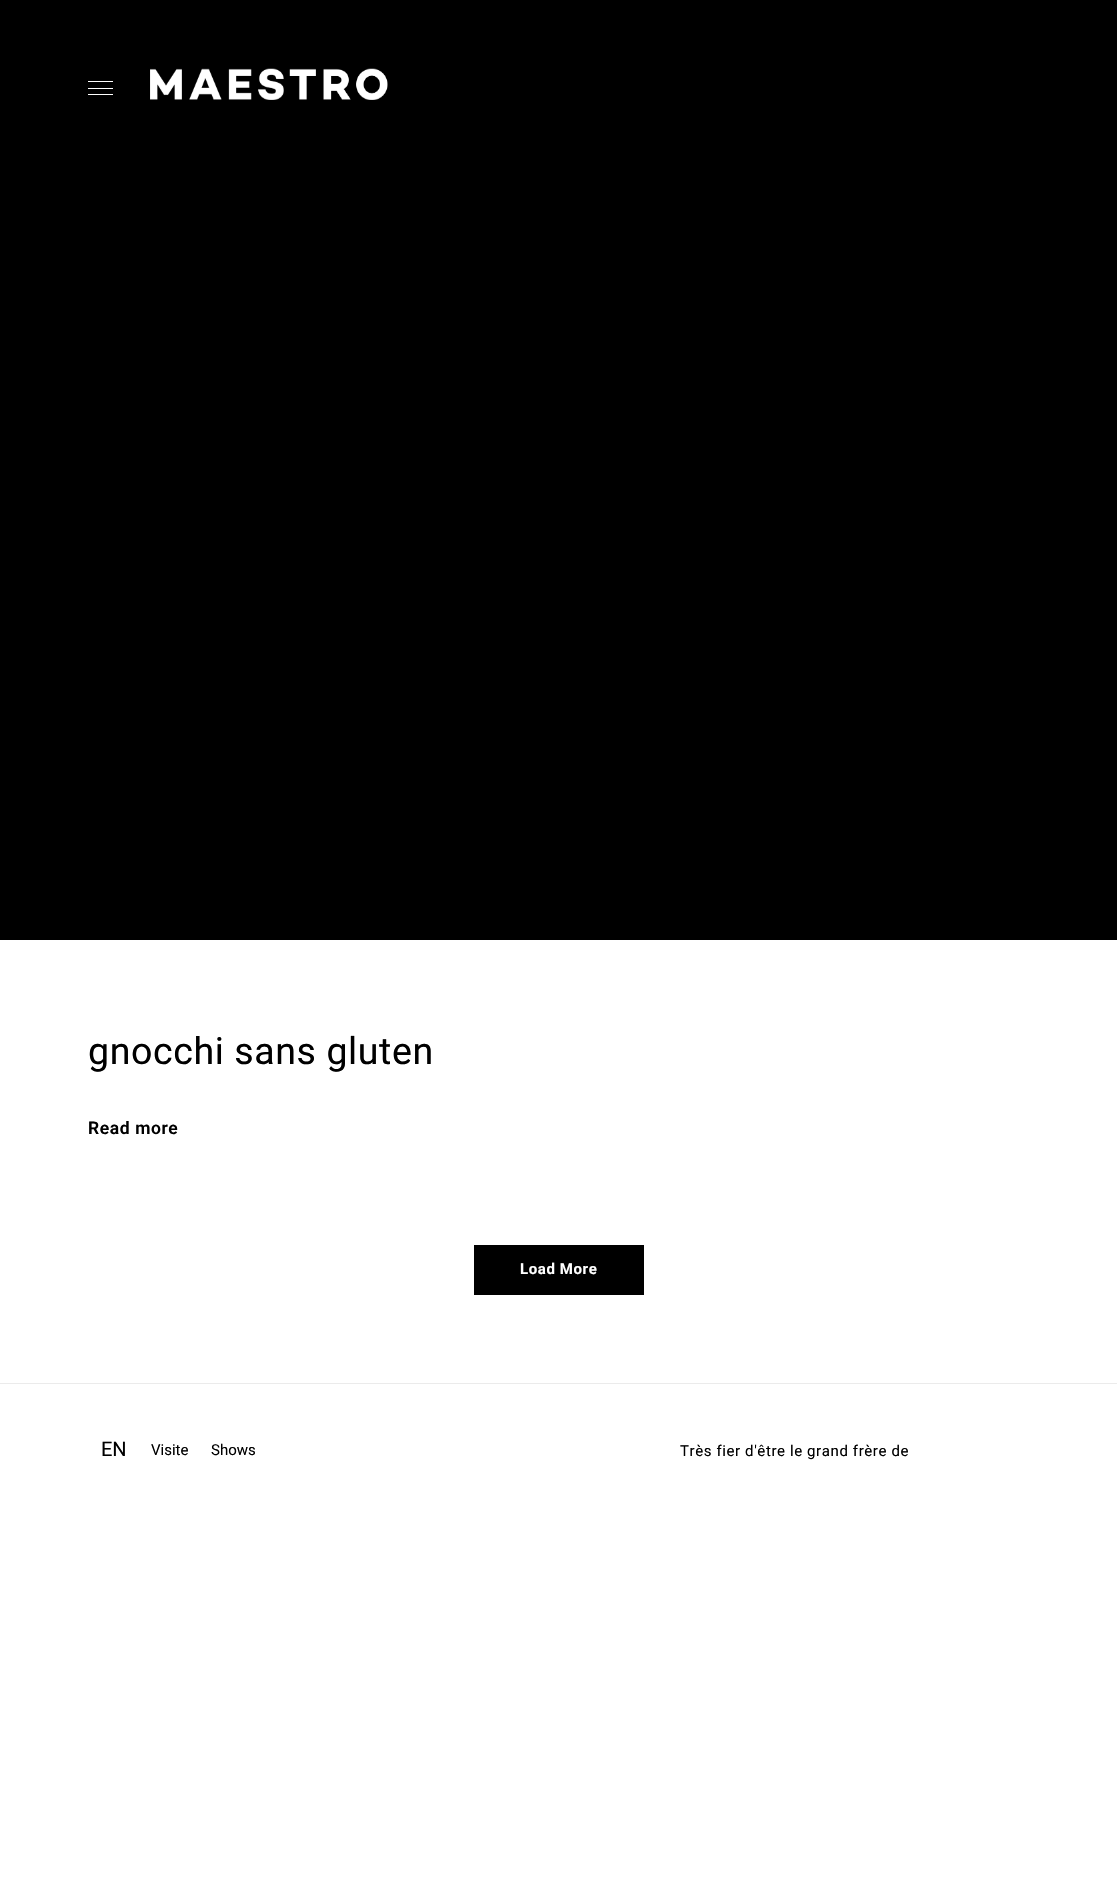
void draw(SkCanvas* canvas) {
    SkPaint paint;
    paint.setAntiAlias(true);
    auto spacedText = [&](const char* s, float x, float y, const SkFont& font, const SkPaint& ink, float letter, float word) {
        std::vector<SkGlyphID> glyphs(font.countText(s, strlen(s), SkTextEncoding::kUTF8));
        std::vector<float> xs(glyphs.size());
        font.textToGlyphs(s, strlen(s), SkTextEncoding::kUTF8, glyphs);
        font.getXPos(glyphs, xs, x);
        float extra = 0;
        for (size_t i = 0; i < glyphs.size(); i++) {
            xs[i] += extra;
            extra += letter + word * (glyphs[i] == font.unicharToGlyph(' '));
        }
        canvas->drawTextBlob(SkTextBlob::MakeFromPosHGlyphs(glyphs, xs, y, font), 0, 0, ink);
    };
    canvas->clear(0xFFFFFFFF);
    paint.setColor(0xFF000000);
    canvas->drawRect(SkRect::MakeXYWH(0, 0, 1117, 940), paint);
    paint.setColor(0xFFFFFFFF);
    canvas->drawRect(SkRect::MakeXYWH(88, 88, 25, 1), paint);
    canvas->drawRect(SkRect::MakeXYWH(88, 81, 25, 1), paint);
    canvas->drawRect(SkRect::MakeXYWH(88, 94, 25, 1), paint);
    canvas->drawImageRect(SkImages::DeferredFromEncodedData(SkData::MakeFromFileName("img1.png")), SkRect::MakeXYWH(150, 68, 238, 32), SkSamplingOptions());
    SkFont font1(fontMgr->matchFamilyStyle("Roboto", SkFontStyle::Normal()), 37.5f);
    font1.setSubpixel(true);
    paint.setColor(0xFF000000);
    spacedText("gnocchi sans gluten", 88, 1064, font1, paint, 0.6f, 0);
    SkFont font2(fontMgr->matchFamilyStyle("Roboto", SkFontStyle(600, SkFontStyle::kNormal_Width, SkFontStyle::kUpright_Slant)), 17.5f);
    font2.setSubpixel(true);
    spacedText("Read more", 88, 1134, font2, paint, 0.6f, 0);
    canvas->drawRect(SkRect::MakeXYWH(474, 1245, 170, 50), paint);
    SkFont font3(fontMgr->matchFamilyStyle("Roboto", SkFontStyle::Bold()), 15);
    font3.setSubpixel(true);
    paint.setColor(0xFFFFFFFF);
    spacedText("Load More", 520, 1274, font3, paint, 0.6f, 0);
    paint.setColor(0xFFEBEBEB);
    canvas->drawRect(SkRect::MakeXYWH(0, 1383, 1117, 1), paint);
    SkFont font4(fontMgr->matchFamilyStyle("Roboto", SkFontStyle::Normal()), 20);
    font4.setSubpixel(true);
    paint.setColor(0xFF000000);
    canvas->drawString("EN", 101, 1456, font4, paint);
    SkFont font5(fontMgr->matchFamilyStyle("Roboto", SkFontStyle::Normal()), 15);
    font5.setSubpixel(true);
    canvas->drawString("Visite", 151, 1455, font5, paint);
    canvas->drawString("Shows", 211, 1455, font5, paint);
    spacedText("Très fier d'être le grand frère de", 680, 1456, font5, paint, 0.6f, 0);
}
